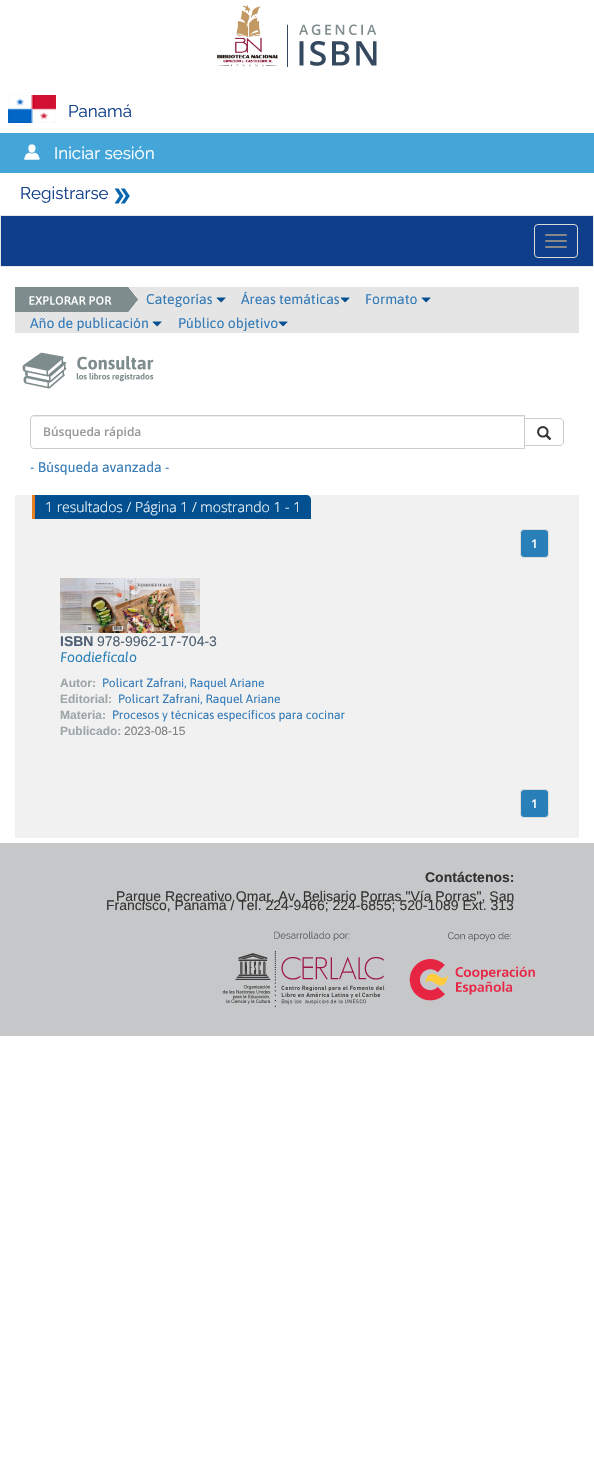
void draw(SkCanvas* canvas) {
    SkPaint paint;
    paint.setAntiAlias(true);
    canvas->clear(0xFFFFFFFF);
    canvas->drawImageRect(SkImages::DeferredFromEncodedData(SkData::MakeFromFileName("img1.png")), SkRect::MakeXYWH(217, 5, 61, 62), SkSamplingOptions());
    canvas->drawImageRect(SkImages::DeferredFromEncodedData(SkData::MakeFromFileName("img2.png")), SkRect::MakeXYWH(287, 24, 90, 43), SkSamplingOptions());
    canvas->drawImageRect(SkImages::DeferredFromEncodedData(SkData::MakeFromFileName("img3.png")), SkRect::MakeXYWH(8, 95, 48, 28), SkSamplingOptions());
    SkFont font1(fontMgr->matchFamilyStyle("Raleway", SkFontStyle(100, SkFontStyle::kNormal_Width, SkFontStyle::kUpright_Slant)), 17);
    font1.setSubpixel(true);
    paint.setColor(0xFF0F3E8B);
    canvas->drawString("Panamá", 68, 117, font1, paint);
    paint.setColor(0xFF44A5D9);
    canvas->drawRect(SkRect::MakeXYWH(0, 133, 594, 40), paint);
    canvas->drawImageRect(SkImages::DeferredFromEncodedData(SkData::MakeFromFileName("img4.png")), SkRect::MakeXYWH(24, 144, 16, 16), SkSamplingOptions());
    paint.setColor(0xFFFFFFFF);
    canvas->drawString("Iniciar sesión", 54, 159, font1, paint);
    paint.setColor(0xFF0F3E8B);
    canvas->drawString("Registrarse", 20, 199, font1, paint);
    canvas->drawImageRect(SkImages::DeferredFromEncodedData(SkData::MakeFromFileName("img5.png")), SkRect::MakeXYWH(114, 188, 16, 16), SkSamplingOptions());
    canvas->drawRect(SkRect::MakeXYWH(0.5f, 215.5f, 593, 51), paint);
    paint.setStyle(SkPaint::kStroke_Style);
    paint.setStrokeWidth(1);
    paint.setColor(0xFFE7E7E7);
    canvas->drawRect(SkRect::MakeXYWH(0.5f, 215.5f, 593, 51), paint);
    paint.setColor(0xFFDDDDDD);
    canvas->drawRoundRect(SkRect::MakeXYWH(534.5f, 224.5f, 43, 33), 3.5f, 3.5f, paint);
    paint.setStyle(SkPaint::kFill_Style);
    paint.setColor(0xFF888888);
    canvas->drawRoundRect(SkRect::MakeXYWH(545, 234, 22, 2), 1, 1, paint);
    canvas->drawRoundRect(SkRect::MakeXYWH(545, 240, 22, 2), 1, 1, paint);
    canvas->drawRoundRect(SkRect::MakeXYWH(545, 246, 22, 2), 1, 1, paint);
    paint.setColor(0xFFE5E5E5);
    canvas->drawRect(SkRect::MakeXYWH(15, 287, 564, 46), paint);
    canvas->drawImageRect(SkImages::DeferredFromEncodedData(SkData::MakeFromFileName("img6.png")), SkRect::MakeXYWH(15, 287, 123, 25), SkSamplingOptions());
    SkFont font2(fontMgr->matchFamilyStyle("Asap", SkFontStyle::Normal()), 14);
    font2.setSubpixel(true);
    paint.setColor(0xFF337AB7);
    canvas->drawString("Categorías", 146, 304, font2, paint);
    canvas->drawImageRect(SkImages::DeferredFromEncodedData(SkData::MakeFromFileName("img7.png")), SkRect::MakeXYWH(216, 297, 10, 6), SkSamplingOptions());
    canvas->drawString("Áreas temáticas", 241, 304, font2, paint);
    canvas->drawImageRect(SkImages::DeferredFromEncodedData(SkData::MakeFromFileName("img7.png")), SkRect::MakeXYWH(340, 297, 10, 6), SkSamplingOptions());
    canvas->drawString("Formato", 365, 304, font2, paint);
    canvas->drawImageRect(SkImages::DeferredFromEncodedData(SkData::MakeFromFileName("img7.png")), SkRect::MakeXYWH(421, 297, 10, 6), SkSamplingOptions());
    canvas->drawString("Año de publicación", 30, 328, font2, paint);
    canvas->drawImageRect(SkImages::DeferredFromEncodedData(SkData::MakeFromFileName("img7.png")), SkRect::MakeXYWH(152, 321, 10, 6), SkSamplingOptions());
    canvas->drawString("Público objetivo", 178, 328, font2, paint);
    canvas->drawImageRect(SkImages::DeferredFromEncodedData(SkData::MakeFromFileName("img7.png")), SkRect::MakeXYWH(278, 321, 10, 6), SkSamplingOptions());
    canvas->drawImageRect(SkImages::DeferredFromEncodedData(SkData::MakeFromFileName("img8.png")), SkRect::MakeXYWH(22, 352, 132, 37), SkSamplingOptions());
    paint.setColor(0xFFECECEC);
    canvas->drawPath(SkPathBuilder().moveTo(34, 417).lineTo(524, 417).lineTo(524, 416).lineTo(34, 416).cubicTo(32, 416, 31, 418, 31, 420).cubicTo(31, 418, 32, 417, 34, 417).close().detach(), paint);
    paint.setStyle(SkPaint::kStroke_Style);
    paint.setColor(0xFFCCCCCC);
    canvas->drawPath(SkPathBuilder().moveTo(34, 415.5f).lineTo(524.5f, 415.5f).lineTo(524.5f, 448.5f).lineTo(34, 448.5f).cubicTo(32, 448.5f, 30.5f, 447, 30.5f, 445).lineTo(30.5f, 419).cubicTo(30.5f, 417, 32, 415.5f, 34, 415.5f).close().detach(), paint);
    SkFont font3(fontMgr->matchFamilyStyle("Open Sans", SkFontStyle(600, SkFontStyle::kNormal_Width, SkFontStyle::kUpright_Slant)), 12);
    font3.setSubpixel(true);
    paint.setStyle(SkPaint::kFill_Style);
    paint.setColor(0xFF999999);
    canvas->drawString("Búsqueda rápida", 43, 436, font3, paint);
    paint.setColor(0xFFFFFFFF);
    canvas->drawPath(SkPathBuilder().moveTo(524.5f, 418.5f).lineTo(560, 418.5f).cubicTo(562, 418.5f, 563.5f, 420, 563.5f, 422).lineTo(563.5f, 442).cubicTo(563.5f, 444, 562, 445.5f, 560, 445.5f).lineTo(524.5f, 445.5f).close().detach(), paint);
    paint.setStyle(SkPaint::kStroke_Style);
    paint.setColor(0xFFCCCCCC);
    canvas->drawPath(SkPathBuilder().moveTo(524.5f, 418.5f).lineTo(560, 418.5f).cubicTo(562, 418.5f, 563.5f, 420, 563.5f, 422).lineTo(563.5f, 442).cubicTo(563.5f, 444, 562, 445.5f, 560, 445.5f).lineTo(524.5f, 445.5f).close().detach(), paint);
    canvas->drawImageRect(SkImages::DeferredFromEncodedData(SkData::MakeFromFileName("img9.png")), SkRect::MakeXYWH(537, 426, 15, 14), SkSamplingOptions());
    paint.setStyle(SkPaint::kFill_Style);
    paint.setColor(0xFF337AB7);
    canvas->drawString("- Búsqueda avanzada -", 30, 472, font2, paint);
    paint.setColor(0xFFF1F1F1);
    canvas->drawRect(SkRect::MakeXYWH(15, 495, 564, 343), paint);
    paint.setColor(0xFF02508F);
    canvas->drawPath(SkPathBuilder().moveTo(32, 495).lineTo(306, 495).cubicTo(309, 495, 311, 497, 311, 500).lineTo(311, 519).lineTo(32, 519).close().detach(), paint);
    SkFont font4(fontMgr->matchFamilyStyle("Open Sans", SkFontStyle(300, SkFontStyle::kNormal_Width, SkFontStyle::kUpright_Slant)), 14);
    font4.setSubpixel(true);
    paint.setColor(0xFFFFFFFF);
    canvas->drawString("1 resultados / Página 1 / mostrando 1 - 1", 45, 512, font4, paint);
    paint.setColor(0xFFE67E22);
    canvas->drawRect(SkRect::MakeXYWH(32, 495, 3, 24), paint);
    paint.setColor(0xFF2980B9);
    canvas->drawRoundRect(SkRect::MakeXYWH(520.5f, 529.5f, 28, 28), 3.5f, 3.5f, paint);
    paint.setStyle(SkPaint::kStroke_Style);
    paint.setColor(0xFFDDDDDD);
    canvas->drawRoundRect(SkRect::MakeXYWH(520.5f, 529.5f, 28, 28), 3.5f, 3.5f, paint);
    paint.setStyle(SkPaint::kFill_Style);
    paint.setColor(0xFFFFFFFF);
    canvas->drawString("1", 531, 548, font3, paint);
    canvas->drawImageRect(SkImages::DeferredFromEncodedData(SkData::MakeFromFileName("img10.png")), SkRect::MakeXYWH(60, 578, 140, 55), SkSamplingOptions());
    SkFont font5(fontMgr->matchFamilyStyle("Liberation Sans", SkFontStyle::Bold()), 14);
    font5.setSubpixel(true);
    paint.setColor(0xFF4D5F72);
    canvas->drawString("ISBN", 60, 646, font5, paint);
    SkFont font6(fontMgr->matchFamilyStyle("Liberation Sans", SkFontStyle::Normal()), 14);
    font6.setSubpixel(true);
    canvas->drawString("978-9962-17-704-3", 97, 646, font6, paint);
    SkFont font7(fontMgr->matchFamilyStyle("Asap", SkFontStyle::Italic()), 14);
    font7.setSubpixel(true);
    paint.setColor(0xFF2980B9);
    canvas->drawString("Foodiefícalo", 60, 662, font7, paint);
    SkFont font8(fontMgr->matchFamilyStyle("Liberation Sans", SkFontStyle::Bold()), 12);
    font8.setSubpixel(true);
    paint.setColor(0xFF9DA7A8);
    canvas->drawString("Autor:", 60, 687, font8, paint);
    SkFont font9(fontMgr->matchFamilyStyle("Asap", SkFontStyle::Normal()), 12);
    font9.setSubpixel(true);
    paint.setColor(0xFF337AB7);
    canvas->drawString("Policart Zafrani, Raquel Ariane", 102, 687, font9, paint);
    paint.setColor(0xFF9DA7A8);
    canvas->drawString("Editorial:", 60, 703, font8, paint);
    paint.setColor(0xFF337AB7);
    canvas->drawString("Policart Zafrani, Raquel Ariane", 118, 703, font9, paint);
    paint.setColor(0xFF9DA7A8);
    canvas->drawString("Materia:", 60, 719, font8, paint);
    paint.setColor(0xFF337AB7);
    canvas->drawString("Procesos y técnicas específicos para cocinar", 112, 719, font9, paint);
    paint.setColor(0xFF9DA7A8);
    canvas->drawString("Publicado:", 60, 735, font8, paint);
    SkFont font10(fontMgr->matchFamilyStyle("Liberation Sans", SkFontStyle::Normal()), 12);
    font10.setSubpixel(true);
    paint.setColor(0xFF7C807D);
    canvas->drawString("2023-08-15", 124, 735, font10, paint);
    paint.setColor(0xFF2980B9);
    canvas->drawRoundRect(SkRect::MakeXYWH(520.5f, 789.5f, 28, 28), 3.5f, 3.5f, paint);
    paint.setStyle(SkPaint::kStroke_Style);
    paint.setColor(0xFFDDDDDD);
    canvas->drawRoundRect(SkRect::MakeXYWH(520.5f, 789.5f, 28, 28), 3.5f, 3.5f, paint);
    paint.setStyle(SkPaint::kFill_Style);
    paint.setColor(0xFFFFFFFF);
    canvas->drawString("1", 531, 808, font3, paint);
    paint.setColor(0xFFC6C7C8);
    canvas->drawRect(SkRect::MakeXYWH(0, 843, 594, 193), paint);
    paint.setColor(0xFF333333);
    canvas->drawString("Contáctenos:", 425, 882, font5, paint);
    canvas->drawString("Parque Recreativo Omar, Av. Belisario Porras \"Vía Porras\", San", 116, 901, font6, paint);
    canvas->drawString("Francisco, Panamá / Tel. 224-9466; 224-6855; 520-1089 Ext. 313", 106, 910, font6, paint);
    canvas->drawImageRect(SkImages::DeferredFromEncodedData(SkData::MakeFromFileName("img11.png")), SkRect::MakeXYWH(222, 931, 313, 76), SkSamplingOptions());
}
